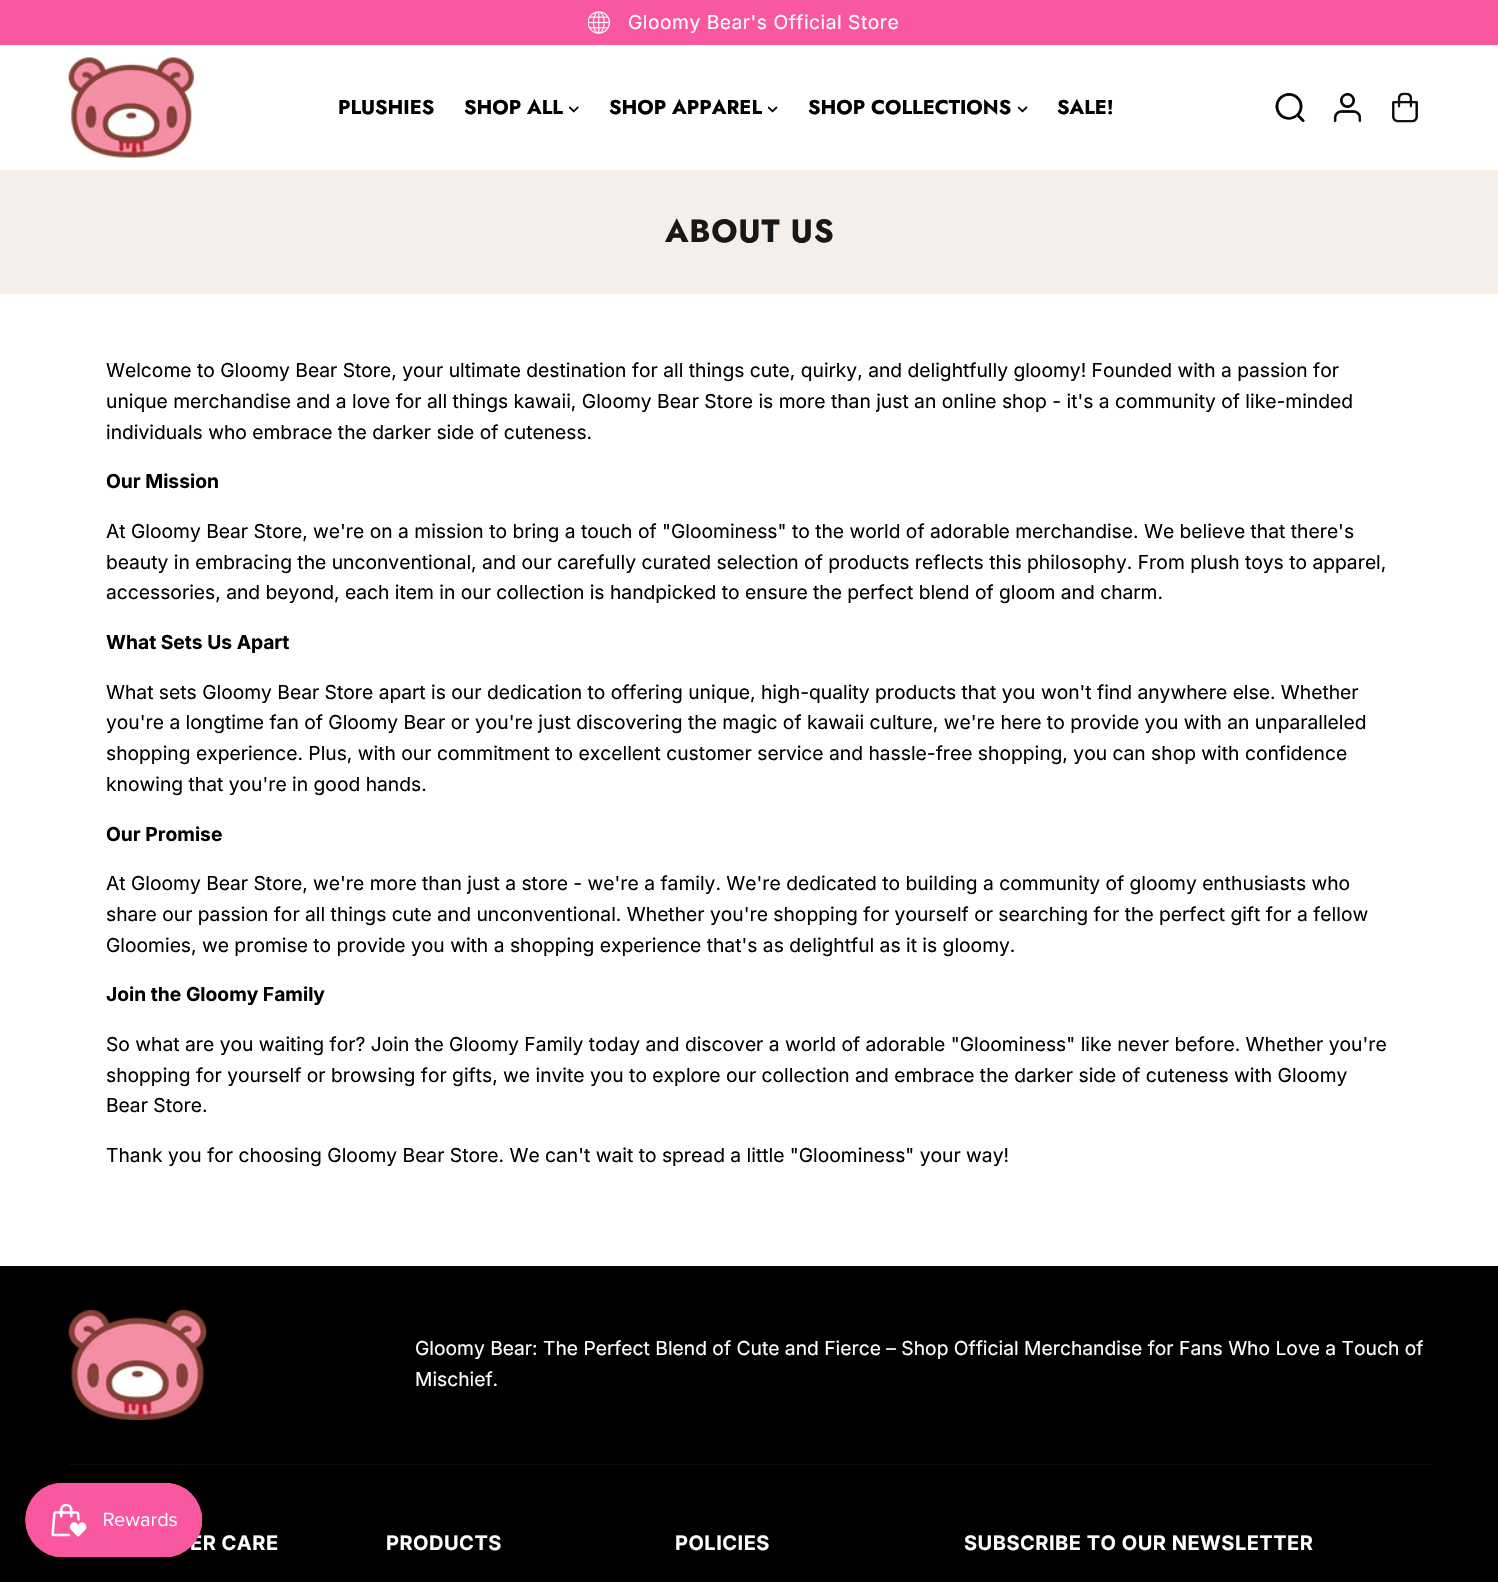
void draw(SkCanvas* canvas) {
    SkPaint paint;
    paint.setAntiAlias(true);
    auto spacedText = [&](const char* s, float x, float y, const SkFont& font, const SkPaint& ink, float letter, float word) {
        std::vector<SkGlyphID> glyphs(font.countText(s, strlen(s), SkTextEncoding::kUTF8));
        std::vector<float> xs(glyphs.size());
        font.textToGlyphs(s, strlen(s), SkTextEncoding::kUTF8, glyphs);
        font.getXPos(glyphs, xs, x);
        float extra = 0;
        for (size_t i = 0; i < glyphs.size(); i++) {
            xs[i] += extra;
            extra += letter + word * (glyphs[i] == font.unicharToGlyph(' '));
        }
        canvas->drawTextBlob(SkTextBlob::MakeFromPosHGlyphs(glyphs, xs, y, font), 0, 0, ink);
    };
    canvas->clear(0xFFFFFFFF);
    paint.setColor(0xFFF9579F);
    canvas->drawRect(SkRect::MakeXYWH(0, 0, 1498, 45), paint);
    canvas->drawImageRect(SkImages::DeferredFromEncodedData(SkData::MakeFromFileName("img1.png")), SkRect::MakeXYWH(588, 11, 22, 23), SkSamplingOptions());
    SkFont font1(fontMgr->matchFamilyStyle("Inter", SkFontStyle::Normal()), 19.25f);
    font1.setSubpixel(true);
    paint.setColor(0xFFFFFFFF);
    spacedText("Gloomy Bear's Official Store", 628, 29, font1, paint, 0.5f, 0);
    canvas->drawImageRect(SkImages::DeferredFromEncodedData(SkData::MakeFromFileName("img2.png")), SkRect::MakeXYWH(68, 57, 126, 101), SkSamplingOptions());
    SkFont font2(fontMgr->matchFamilyStyle("Jost", SkFontStyle::Bold()), 20);
    font2.setSubpixel(true);
    paint.setColor(0xFF000000);
    canvas->drawString("PLUSHIES", 338, 114, font2, paint);
    canvas->drawString("SHOP ALL", 464, 114, font2, paint);
    canvas->drawImageRect(SkImages::DeferredFromEncodedData(SkData::MakeFromFileName("img3.png")), SkRect::MakeXYWH(569, 106, 10, 7), SkSamplingOptions());
    canvas->drawString("SHOP APPAREL", 609, 114, font2, paint);
    canvas->drawImageRect(SkImages::DeferredFromEncodedData(SkData::MakeFromFileName("img4.png")), SkRect::MakeXYWH(768, 106, 10, 7), SkSamplingOptions());
    canvas->drawString("SHOP COLLECTIONS", 808, 114, font2, paint);
    canvas->drawImageRect(SkImages::DeferredFromEncodedData(SkData::MakeFromFileName("img4.png")), SkRect::MakeXYWH(1018, 106, 10, 7), SkSamplingOptions());
    canvas->drawString("SALE!", 1057, 114, font2, paint);
    canvas->drawImageRect(SkImages::DeferredFromEncodedData(SkData::MakeFromFileName("img5.png")), SkRect::MakeXYWH(1275, 93, 30, 29), SkSamplingOptions());
    canvas->drawImageRect(SkImages::DeferredFromEncodedData(SkData::MakeFromFileName("img6.png")), SkRect::MakeXYWH(1333, 93, 29, 29), SkSamplingOptions());
    canvas->drawImageRect(SkImages::DeferredFromEncodedData(SkData::MakeFromFileName("img7.png")), SkRect::MakeXYWH(1392, 92, 26, 31), SkSamplingOptions());
    paint.setColor(0xFFF5EFEC);
    canvas->drawRect(SkRect::MakeXYWH(0, 170, 1498, 124), paint);
    SkFont font3(fontMgr->matchFamilyStyle("Jost", SkFontStyle::Bold()), 32);
    font3.setSubpixel(true);
    paint.setColor(0xFF181818);
    spacedText("ABOUT US", 665, 242, font3, paint, 0.75f, 0);
    paint.setColor(0xFF000000);
    canvas->drawString("Welcome to Gloomy Bear Store, your ultimate destination for all things cute, quirky, and delightfully gloomy! Founded with a passion for", 106, 377, font1, paint);
    canvas->drawString("unique merchandise and a love for all things kawaii, Gloomy Bear Store is more than just an online shop - it's a community of like-minded", 106, 408, font1, paint);
    canvas->drawString("individuals who embrace the darker side of cuteness.", 106, 439, font1, paint);
    SkFont font4(fontMgr->matchFamilyStyle("Inter", SkFontStyle::Bold()), 19.25f);
    font4.setSubpixel(true);
    canvas->drawString("Our Mission", 106, 488, font4, paint);
    canvas->drawString("At Gloomy Bear Store, we're on a mission to bring a touch of \"Gloominess\" to the world of adorable merchandise. We believe that there's", 106, 538, font1, paint);
    canvas->drawString("beauty in embracing the unconventional, and our carefully curated selection of products reflects this philosophy. From plush toys to apparel,", 106, 569, font1, paint);
    canvas->drawString("accessories, and beyond, each item in our collection is handpicked to ensure the perfect blend of gloom and charm.", 106, 599, font1, paint);
    canvas->drawString("What Sets Us Apart", 106, 649, font4, paint);
    canvas->drawString("What sets Gloomy Bear Store apart is our dedication to offering unique, high-quality products that you won't find anywhere else. Whether", 106, 699, font1, paint);
    canvas->drawString("you're a longtime fan of Gloomy Bear or you're just discovering the magic of kawaii culture, we're here to provide you with an unparalleled", 106, 729, font1, paint);
    canvas->drawString("shopping experience. Plus, with our commitment to excellent customer service and hassle-free shopping, you can shop with confidence", 106, 760, font1, paint);
    canvas->drawString("knowing that you're in good hands.", 106, 791, font1, paint);
    canvas->drawString("Our Promise", 106, 841, font4, paint);
    canvas->drawString("At Gloomy Bear Store, we're more than just a store - we're a family. We're dedicated to building a community of gloomy enthusiasts who", 106, 890, font1, paint);
    canvas->drawString("share our passion for all things cute and unconventional. Whether you're shopping for yourself or searching for the perfect gift for a fellow", 106, 921, font1, paint);
    canvas->drawString("Gloomies, we promise to provide you with a shopping experience that's as delightful as it is gloomy.", 106, 952, font1, paint);
    canvas->drawString("Join the Gloomy Family", 106, 1001, font4, paint);
    canvas->drawString("So what are you waiting for? Join the Gloomy Family today and discover a world of adorable \"Gloominess\" like never before. Whether you're", 106, 1051, font1, paint);
    canvas->drawString("shopping for yourself or browsing for gifts, we invite you to explore our collection and embrace the darker side of cuteness with Gloomy", 106, 1082, font1, paint);
    canvas->drawString("Bear Store.", 106, 1112, font1, paint);
    canvas->drawString("Thank you for choosing Gloomy Bear Store. We can't wait to spread a little \"Gloominess\" your way!", 106, 1162, font1, paint);
    canvas->drawRect(SkRect::MakeXYWH(0, 1266, 1498, 316), paint);
    paint.setColor(0xFF0D0D0D);
    canvas->drawRect(SkRect::MakeXYWH(69, 1464, 1362, 1), paint);
    canvas->drawImageRect(SkImages::DeferredFromEncodedData(SkData::MakeFromFileName("img8.png")), SkRect::MakeXYWH(68, 1310, 139, 110), SkSamplingOptions());
    paint.setColor(0xFFFFFFFF);
    canvas->drawString("Gloomy Bear: The Perfect Blend of Cute and Fierce – Shop Official Merchandise for Fans Who Love a Touch of", 415, 1355, font1, paint);
    canvas->drawString("Mischief.", 415, 1386, font1, paint);
    SkFont font5(fontMgr->matchFamilyStyle("Inter", SkFontStyle::Bold()), 20);
    font5.setSubpixel(true);
    spacedText("ER CARE", 190, 1550, font5, paint, 0.5f, 0);
    spacedText("PRODUCTS", 386, 1550, font5, paint, 0.5f, 0);
    spacedText("POLICIES", 675, 1550, font5, paint, 0.5f, 0);
    spacedText("SUBSCRIBE TO OUR NEWSLETTER", 964, 1550, font5, paint, 0.5f, 0);
    canvas->drawImageRect(SkImages::DeferredFromEncodedData(SkData::MakeFromFileName("img9.png")), SkRect::MakeXYWH(25, 1482, 178, 76), SkSamplingOptions());
}
